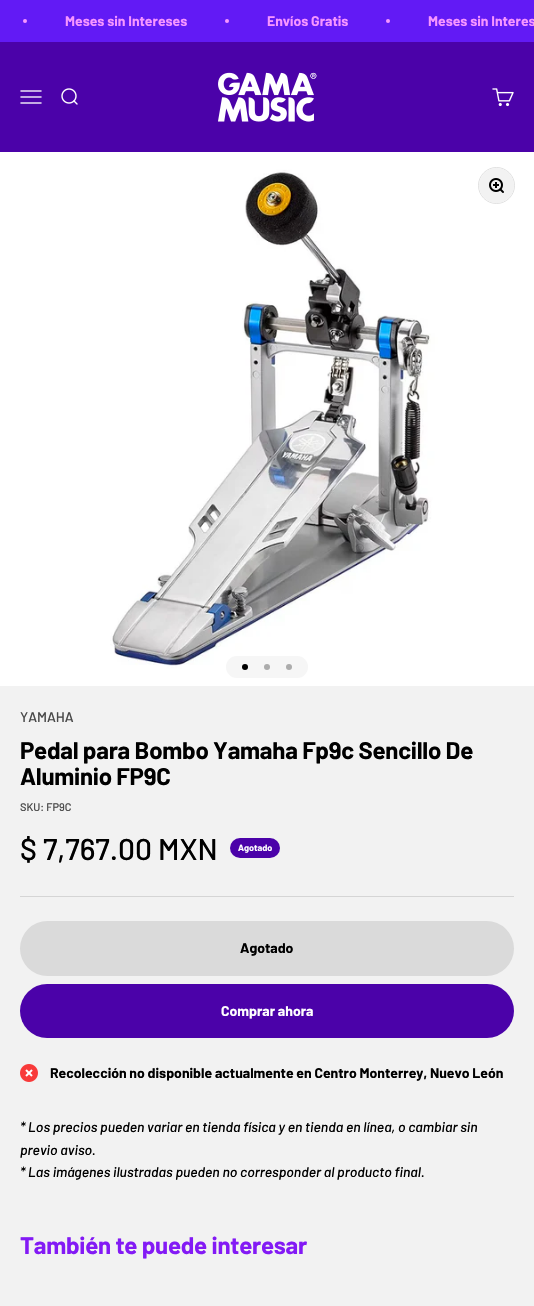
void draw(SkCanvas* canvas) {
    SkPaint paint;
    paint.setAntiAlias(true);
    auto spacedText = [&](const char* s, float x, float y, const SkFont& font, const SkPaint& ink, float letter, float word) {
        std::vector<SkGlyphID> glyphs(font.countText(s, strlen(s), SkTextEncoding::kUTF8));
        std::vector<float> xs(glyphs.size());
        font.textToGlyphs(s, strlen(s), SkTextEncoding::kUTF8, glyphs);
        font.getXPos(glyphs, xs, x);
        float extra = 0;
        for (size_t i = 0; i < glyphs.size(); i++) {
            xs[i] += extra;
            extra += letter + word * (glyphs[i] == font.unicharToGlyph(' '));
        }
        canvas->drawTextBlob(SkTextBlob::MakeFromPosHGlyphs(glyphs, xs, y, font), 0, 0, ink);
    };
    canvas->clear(0xFFF2F2F2);
    paint.setColor(0xFF621AF5);
    canvas->drawRect(SkRect::MakeXYWH(0, 0, 534, 42), paint);
    paint.setColor(0xFFF796FF);
    canvas->drawCircle(25, 21, 2, paint);
    SkFont font1(fontMgr->matchFamilyStyle("Barlow", SkFontStyle::Bold()), 14);
    font1.setSubpixel(true);
    canvas->drawString("Meses sin Intereses", 65, 26, font1, paint);
    canvas->drawCircle(227, 21, 2, paint);
    canvas->drawString("Envíos Gratis", 267, 26, font1, paint);
    canvas->drawCircle(388, 21, 2, paint);
    canvas->drawString("Meses sin Interes", 428, 26, font1, paint);
    paint.setColor(0xFF4B02A9);
    canvas->drawRect(SkRect::MakeXYWH(0, 42, 534, 110), paint);
    canvas->drawImageRect(SkImages::DeferredFromEncodedData(SkData::MakeFromFileName("img1.png")), SkRect::MakeXYWH(20, 90, 22, 14), SkSamplingOptions());
    canvas->drawImageRect(SkImages::DeferredFromEncodedData(SkData::MakeFromFileName("img2.png")), SkRect::MakeXYWH(61, 88, 17, 17), SkSamplingOptions());
    canvas->drawImageRect(SkImages::DeferredFromEncodedData(SkData::MakeFromFileName("img3.png")), SkRect::MakeXYWH(218, 72, 99, 50), SkSamplingOptions());
    canvas->drawImageRect(SkImages::DeferredFromEncodedData(SkData::MakeFromFileName("img4.png")), SkRect::MakeXYWH(492, 88, 22, 19), SkSamplingOptions());
    canvas->drawImageRect(SkImages::DeferredFromEncodedData(SkData::MakeFromFileName("img5.png")), SkRect::MakeXYWH(0, 152, 534, 534), SkSamplingOptions());
    paint.setStyle(SkPaint::kStroke_Style);
    paint.setStrokeWidth(1);
    paint.setColor(0xFFE0E0E0);
    canvas->drawCircle(496.5f, 185.5f, 18, paint);
    paint.setStyle(SkPaint::kFill_Style);
    paint.setColor(0xFFF2F2F2);
    canvas->drawCircle(496.5f, 185.5f, 17.5f, paint);
    canvas->drawImageRect(SkImages::DeferredFromEncodedData(SkData::MakeFromFileName("img6.png")), SkRect::MakeXYWH(489, 178, 15, 15), SkSamplingOptions());
    paint.setColor(0xFFF6F6F6);
    canvas->drawRoundRect(SkRect::MakeXYWH(226, 656, 82, 22), 11, 11, paint);
    paint.setColor(0xFF000000);
    canvas->drawCircle(245, 667, 3, paint);
    paint.setColor(0xFFACACAC);
    canvas->drawCircle(267, 667, 3, paint);
    canvas->drawCircle(289, 667, 3, paint);
    SkFont font2(fontMgr->matchFamilyStyle("Barlow", SkFontStyle(500, SkFontStyle::kNormal_Width, SkFontStyle::kUpright_Slant)), 14);
    font2.setSubpixel(true);
    paint.setColor(0xFF494949);
    canvas->drawString("YAMAHA", 20, 722, font2, paint);
    SkFont font3(fontMgr->matchFamilyStyle("Barlow", SkFontStyle::Bold()), 24);
    font3.setSubpixel(true);
    paint.setColor(0xFF000000);
    spacedText("Pedal para Bombo Yamaha Fp9c Sencillo De", 20, 759, font3, paint, -0.25f, 0);
    spacedText("Aluminio FP9C", 20, 785, font3, paint, -0.25f, 0);
    SkFont font4(fontMgr->matchFamilyStyle("Barlow", SkFontStyle(500, SkFontStyle::kNormal_Width, SkFontStyle::kUpright_Slant)), 11);
    font4.setSubpixel(true);
    paint.setColor(0xFF494949);
    canvas->drawString("SKU: FP9C", 20, 811, font4, paint);
    SkFont font5(fontMgr->matchFamilyStyle("Barlow", SkFontStyle(500, SkFontStyle::kNormal_Width, SkFontStyle::kUpright_Slant)), 30);
    font5.setSubpixel(true);
    paint.setColor(0xFF000000);
    canvas->drawString("$ 7,767.00 MXN", 20, 860, font5, paint);
    paint.setColor(0xFF4B02A9);
    canvas->drawRoundRect(SkRect::MakeXYWH(230, 838, 50, 20), 10, 10, paint);
    SkFont font6(fontMgr->matchFamilyStyle("Barlow", SkFontStyle::Bold()), 9);
    font6.setSubpixel(true);
    paint.setColor(0xFFFFFFFF);
    canvas->drawString("Agotado", 238, 851, font6, paint);
    paint.setColor(0xFFD5D5D5);
    canvas->drawRect(SkRect::MakeXYWH(20, 896, 494, 1), paint);
    paint.setColor(0xFFDADADA);
    canvas->drawRoundRect(SkRect::MakeXYWH(20, 921, 494, 55), 27.5f, 27.5f, paint);
    paint.setColor(0xFF000000);
    canvas->drawString("Agotado", 240, 953, font1, paint);
    paint.setColor(0xFF4B02A9);
    canvas->drawRoundRect(SkRect::MakeXYWH(20, 984, 494, 54), 27, 27, paint);
    paint.setColor(0xFFFFFFFF);
    canvas->drawString("Comprar ahora", 221, 1016, font1, paint);
    canvas->drawImageRect(SkImages::DeferredFromEncodedData(SkData::MakeFromFileName("img7.png")), SkRect::MakeXYWH(20, 1064, 18, 18), SkSamplingOptions());
    paint.setColor(0xFF000000);
    canvas->drawString("Recolección no disponible actualmente en Centro Monterrey, Nuevo León", 50, 1078, font1, paint);
    SkFont font7(fontMgr->matchFamilyStyle("Barlow", SkFontStyle(500, SkFontStyle::kNormal_Width, SkFontStyle::kItalic_Slant)), 14);
    font7.setSubpixel(true);
    canvas->drawString("* Los precios pueden variar en tienda física y en tienda en línea, o cambiar sin", 20, 1132, font7, paint);
    canvas->drawString("previo aviso.", 20, 1155, font7, paint);
    canvas->drawString("* Las imágenes ilustradas pueden no corresponder al producto final.", 20, 1177, font7, paint);
    paint.setColor(0xFF831AF5);
    spacedText("También te puede interesar", 20, 1254, font3, paint, -0.25f, 0);
}
